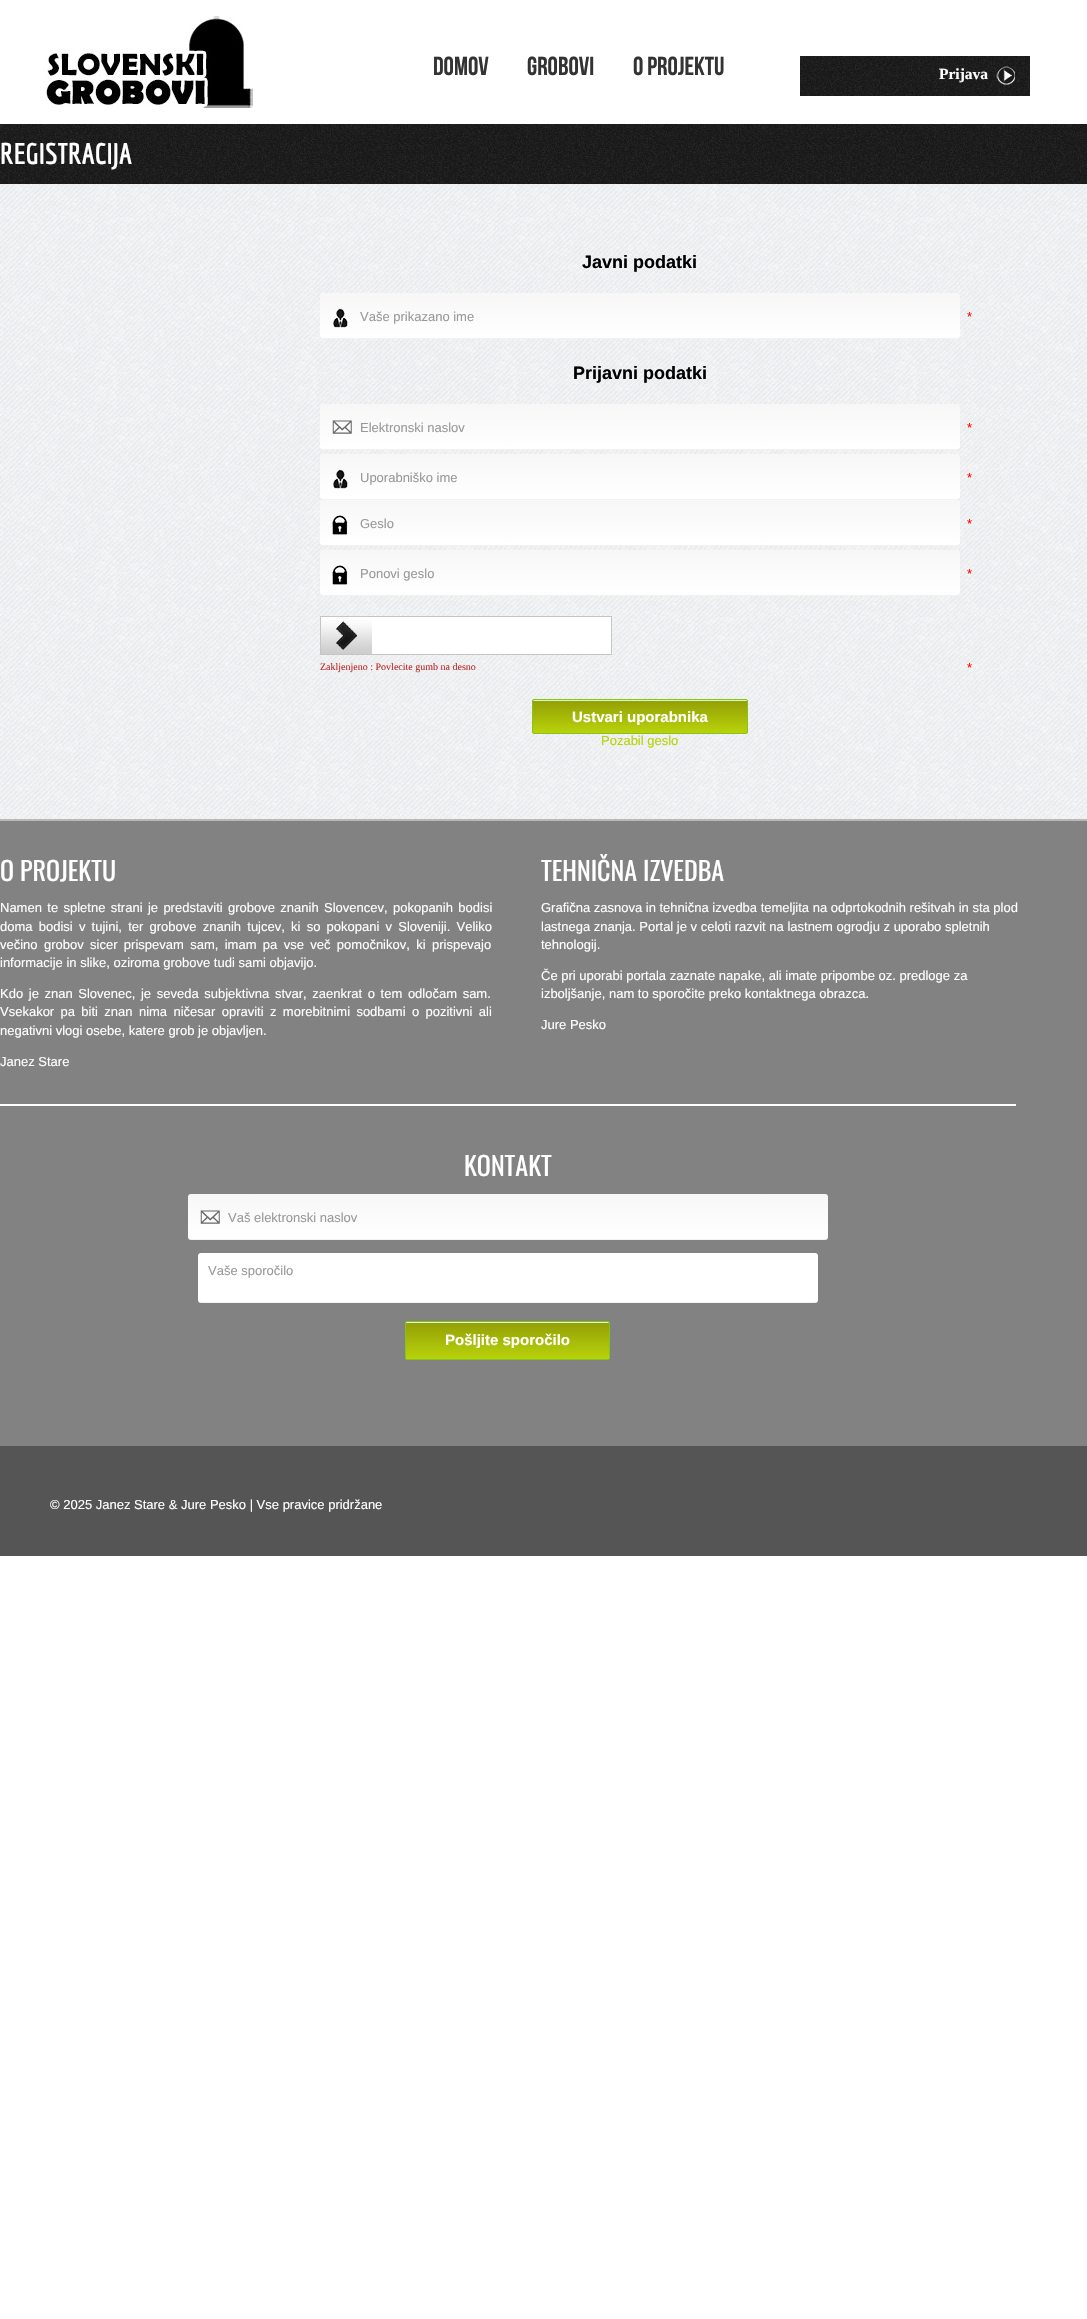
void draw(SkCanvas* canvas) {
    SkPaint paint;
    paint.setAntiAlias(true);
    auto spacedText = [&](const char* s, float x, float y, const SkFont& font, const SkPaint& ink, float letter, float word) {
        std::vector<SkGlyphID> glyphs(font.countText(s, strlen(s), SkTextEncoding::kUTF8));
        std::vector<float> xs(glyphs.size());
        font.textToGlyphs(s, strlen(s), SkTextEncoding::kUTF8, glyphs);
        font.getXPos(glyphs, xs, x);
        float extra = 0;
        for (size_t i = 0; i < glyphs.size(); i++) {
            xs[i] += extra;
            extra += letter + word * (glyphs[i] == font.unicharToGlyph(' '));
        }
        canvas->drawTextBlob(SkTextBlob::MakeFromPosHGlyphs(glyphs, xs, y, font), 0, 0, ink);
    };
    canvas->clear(0xFFFFFFFF);
    canvas->drawImageRect(SkImages::DeferredFromEncodedData(SkData::MakeFromFileName("img1.png")), SkRect::MakeXYWH(46, 16, 207, 92), SkSamplingOptions());
    SkFont font1(fontMgr->matchFamilyStyle("Bebas Neue", SkFontStyle::Normal()), 26);
    font1.setSubpixel(true);
    paint.setColor(0xFF333333);
    canvas->drawString("DOMOV", 433, 75, font1, paint);
    canvas->drawString("GROBOVI", 527, 75, font1, paint);
    canvas->drawString("O PROJEKTU", 633, 75, font1, paint);
    canvas->drawImageRect(SkImages::DeferredFromEncodedData(SkData::MakeFromFileName("img2.png")), SkRect::MakeXYWH(800, 56, 230, 40), SkSamplingOptions());
    SkFont font2(fontMgr->matchFamilyStyle("Liberation Serif", SkFontStyle::Bold()), 15.5f);
    font2.setSubpixel(true);
    paint.setColor(0xFFFFFFFF);
    canvas->drawString("Prijava", 939, 79, font2, paint);
    canvas->drawImageRect(SkImages::DeferredFromEncodedData(SkData::MakeFromFileName("img3.png")), SkRect::MakeXYWH(996, 66, 19, 19), SkSamplingOptions());
    canvas->drawImageRect(SkImages::DeferredFromEncodedData(SkData::MakeFromFileName("img4.png")), SkRect::MakeXYWH(0, 124, 1087, 60), SkSamplingOptions());
    SkFont font3(fontMgr->matchFamilyStyle("Economica", SkFontStyle::Bold()), 29);
    font3.setSubpixel(true);
    canvas->drawString("REGISTRACIJA", 0, 164, font3, paint);
    canvas->drawImageRect(SkImages::DeferredFromEncodedData(SkData::MakeFromFileName("img5.png")), SkRect::MakeXYWH(0, 184, 1087, 635), SkSamplingOptions());
    SkFont font4(fontMgr->matchFamilyStyle("Liberation Sans", SkFontStyle::Bold()), 18);
    font4.setSubpixel(true);
    paint.setColor(0xFF000000);
    canvas->drawString("Javni podatki", 582, 268, font4, paint);
    canvas->drawImageRect(SkImages::DeferredFromEncodedData(SkData::MakeFromFileName("img6.png")), SkRect::MakeXYWH(320, 293, 640, 46), SkSamplingOptions());
    paint.setColor(0x0D000000);
    canvas->drawPath(SkPathBuilder().moveTo(320, 335).lineTo(320, 336).cubicTo(320, 338, 321, 339, 323, 339).lineTo(957, 339).cubicTo(959, 339, 960, 338, 960, 336).lineTo(960, 335).cubicTo(960, 337, 959, 338, 957, 338).lineTo(323, 338).cubicTo(321, 338, 320, 337, 320, 335).close().detach(), paint);
    SkFont font5(fontMgr->matchFamilyStyle("Liberation Sans", SkFontStyle::Normal()), 13);
    font5.setSubpixel(true);
    paint.setColor(0xFF999999);
    canvas->drawString("Vaše prikazano ime", 360, 321, font5, paint);
    paint.setColor(0xFFFF0000);
    canvas->drawString("*", 967, 321, font5, paint);
    paint.setColor(0xFF000000);
    canvas->drawString("Prijavni podatki", 573, 379, font4, paint);
    canvas->drawImageRect(SkImages::DeferredFromEncodedData(SkData::MakeFromFileName("img7.png")), SkRect::MakeXYWH(320, 404, 640, 46), SkSamplingOptions());
    paint.setColor(0x0D000000);
    canvas->drawPath(SkPathBuilder().moveTo(320, 446).lineTo(320, 447).cubicTo(320, 449, 321, 450, 323, 450).lineTo(957, 450).cubicTo(959, 450, 960, 449, 960, 447).lineTo(960, 446).cubicTo(960, 448, 959, 449, 957, 449).lineTo(323, 449).cubicTo(321, 449, 320, 448, 320, 446).close().detach(), paint);
    paint.setColor(0xFF999999);
    canvas->drawString("Elektronski naslov", 360, 432, font5, paint);
    paint.setColor(0xFFFF0000);
    canvas->drawString("*", 967, 432, font5, paint);
    canvas->drawImageRect(SkImages::DeferredFromEncodedData(SkData::MakeFromFileName("img8.png")), SkRect::MakeXYWH(320, 454, 640, 46), SkSamplingOptions());
    paint.setColor(0x0D000000);
    canvas->drawPath(SkPathBuilder().moveTo(320, 496).lineTo(320, 497).cubicTo(320, 499, 321, 500, 323, 500).lineTo(957, 500).cubicTo(959, 500, 960, 499, 960, 497).lineTo(960, 496).cubicTo(960, 498, 959, 499, 957, 499).lineTo(323, 499).cubicTo(321, 499, 320, 498, 320, 496).close().detach(), paint);
    paint.setColor(0xFF999999);
    canvas->drawString("Uporabniško ime", 360, 482, font5, paint);
    paint.setColor(0xFFFF0000);
    canvas->drawString("*", 967, 482, font5, paint);
    canvas->drawImageRect(SkImages::DeferredFromEncodedData(SkData::MakeFromFileName("img9.png")), SkRect::MakeXYWH(320, 500, 640, 46), SkSamplingOptions());
    paint.setColor(0x0D000000);
    canvas->drawPath(SkPathBuilder().moveTo(320, 542).lineTo(320, 543).cubicTo(320, 545, 321, 546, 323, 546).lineTo(957, 546).cubicTo(959, 546, 960, 545, 960, 543).lineTo(960, 542).cubicTo(960, 544, 959, 545, 957, 545).lineTo(323, 545).cubicTo(321, 545, 320, 544, 320, 542).close().detach(), paint);
    paint.setColor(0xFF999999);
    canvas->drawString("Geslo", 360, 528, font5, paint);
    paint.setColor(0xFFFF0000);
    canvas->drawString("*", 967, 528, font5, paint);
    canvas->drawImageRect(SkImages::DeferredFromEncodedData(SkData::MakeFromFileName("img10.png")), SkRect::MakeXYWH(320, 550, 640, 46), SkSamplingOptions());
    paint.setColor(0x0D000000);
    canvas->drawPath(SkPathBuilder().moveTo(320, 592).lineTo(320, 593).cubicTo(320, 595, 321, 596, 323, 596).lineTo(957, 596).cubicTo(959, 596, 960, 595, 960, 593).lineTo(960, 592).cubicTo(960, 594, 959, 595, 957, 595).lineTo(323, 595).cubicTo(321, 595, 320, 594, 320, 592).close().detach(), paint);
    paint.setColor(0xFF999999);
    canvas->drawString("Ponovi geslo", 360, 578, font5, paint);
    paint.setColor(0xFFFF0000);
    canvas->drawString("*", 967, 578, font5, paint);
    paint.setColor(0xFFFFFFFF);
    canvas->drawRect(SkRect::MakeXYWH(320.5f, 616.5f, 291, 38), paint);
    paint.setStyle(SkPaint::kStroke_Style);
    paint.setStrokeWidth(1);
    paint.setColor(0xFFC5C5C5);
    canvas->drawRect(SkRect::MakeXYWH(320.5f, 616.5f, 291, 38), paint);
    canvas->drawImageRect(SkImages::DeferredFromEncodedData(SkData::MakeFromFileName("img11.png")), SkRect::MakeXYWH(321, 620, 51, 34), SkSamplingOptions());
    SkFont font6(fontMgr->matchFamilyStyle("Liberation Serif", SkFontStyle::Normal()), 10);
    font6.setSubpixel(true);
    paint.setStyle(SkPaint::kFill_Style);
    paint.setColor(0xFFBB2828);
    canvas->drawString("Zakljenjeno : Povlecite gumb na desno", 320, 670, font6, paint);
    paint.setColor(0xFFFF0000);
    canvas->drawString("*", 967, 672, font5, paint);
    canvas->save();
    canvas->clipPath(SkPathBuilder().moveTo(534, 699).lineTo(746, 699).cubicTo(747, 699, 748, 700, 748, 701).lineTo(748, 732).cubicTo(748, 733, 747, 734, 746, 734).lineTo(534, 734).cubicTo(533, 734, 532, 733, 532, 732).lineTo(532, 701).cubicTo(532, 700, 533, 699, 534, 699).close().detach(), true);
    {
        const SkColor colors[] = {0xFF95A105, 0xFFB8D30B};
        const float stops[] = {0.05f, 1};
        const SkPoint ends[] = {{533, 700}, {533, 733}};
        paint.setShader(SkGradientShader::MakeLinear(ends, colors, stops, 2, SkTileMode::kClamp));
        paint.setAlpha(255);
    }
    canvas->drawRect(SkRect::MakeXYWH(532, 700, 216, 33), paint);
    canvas->restore();
    paint.setShader(nullptr);
    paint.setColor(0xFFD9FBBE);
    canvas->drawPath(SkPathBuilder().moveTo(534, 701).lineTo(747, 701).lineTo(747, 702).lineTo(747, 700).lineTo(746, 700).lineTo(534, 700).cubicTo(533, 700, 533, 701, 533, 702).cubicTo(533, 701, 533, 701, 534, 701).close().detach(), paint);
    paint.setStyle(SkPaint::kStroke_Style);
    paint.setColor(0xFF83C41A);
    canvas->drawRoundRect(SkRect::MakeXYWH(532.5f, 699.5f, 215, 34), 1.5f, 1.5f, paint);
    SkFont font7(fontMgr->matchFamilyStyle("Liberation Sans", SkFontStyle::Bold()), 15);
    font7.setSubpixel(true);
    paint.setStyle(SkPaint::kFill_Style);
    paint.setColor(0xFFFFFFFF);
    canvas->drawString("Ustvari uporabnika", 572, 722, font7, paint);
    paint.setColor(0xFFB8D30B);
    canvas->drawString("Pozabil geslo", 601, 745, font5, paint);
    paint.setColor(0xFF838282);
    canvas->drawRect(SkRect::MakeXYWH(0, 821, 1087, 625), paint);
    paint.setColor(0xFFB9B8B8);
    canvas->drawRect(SkRect::MakeXYWH(0, 819, 1087, 2), paint);
    SkFont font8(fontMgr->matchFamilyStyle("Oswald", SkFontStyle::Normal()), 26);
    font8.setSubpixel(true);
    paint.setColor(0xFFFFFFFF);
    canvas->drawString("O PROJEKTU", 0, 881, font8, paint);
    spacedText("Namen te spletne strani je predstaviti grobove znanih Slovencev, pokopanih bodisi", 0, 912, font5, paint, 0, 1.75f);
    spacedText("doma bodisi v tujini, ter grobove znanih tujcev, ki so pokopani v Sloveniji. Veliko", 0, 931, font5, paint, 0, 2.6f);
    spacedText("večino grobov sicer prispevam sam, imam pa vse več pomočnikov, ki prispevajo", 0, 949, font5, paint, 0, 2.75f);
    canvas->drawString("informacije in slike, oziroma grobove tudi sami objavijo.", 0, 967, font5, paint);
    spacedText("Kdo je znan Slovenec, je seveda subjektivna stvar, zaenkrat o tem odločam sam.", 0, 998, font5, paint, 0, 2);
    spacedText("Vsekakor pa biti znan nima ničesar opraviti z morebitnimi sodbami o pozitivni ali", 0, 1016, font5, paint, 0, 2.75f);
    canvas->drawString("negativni vlogi osebe, katere grob je objavljen.", 0, 1035, font5, paint);
    canvas->drawString("Janez Stare", 0, 1066, font5, paint);
    canvas->drawString("TEHNIČNA IZVEDBA", 541, 881, font8, paint);
    canvas->drawString("Grafična zasnova in tehnična izvedba temeljita na odprtokodnih rešitvah in sta plod", 541, 912, font5, paint);
    canvas->drawString("lastnega znanja. Portal je v celoti razvit na lastnem ogrodju z uporabo spletnih", 541, 931, font5, paint);
    canvas->drawString("tehnologij.", 541, 949, font5, paint);
    canvas->drawString("Če pri uporabi portala zaznate napake, ali imate pripombe oz. predloge za", 541, 980, font5, paint);
    canvas->drawString("izboljšanje, nam to sporočite preko kontaktnega obrazca.", 541, 998, font5, paint);
    canvas->drawString("Jure Pesko", 541, 1029, font5, paint);
    canvas->drawRect(SkRect::MakeXYWH(0, 1104, 1016, 2), paint);
    canvas->drawString("KONTAKT", 464, 1176, font8, paint);
    canvas->drawImageRect(SkImages::DeferredFromEncodedData(SkData::MakeFromFileName("img12.png")), SkRect::MakeXYWH(188, 1194, 640, 46), SkSamplingOptions());
    paint.setColor(0x0D000000);
    canvas->drawPath(SkPathBuilder().moveTo(188, 1236).lineTo(188, 1237).cubicTo(188, 1239, 189, 1240, 191, 1240).lineTo(825, 1240).cubicTo(827, 1240, 828, 1239, 828, 1237).lineTo(828, 1236).cubicTo(828, 1238, 827, 1239, 825, 1239).lineTo(191, 1239).cubicTo(189, 1239, 188, 1238, 188, 1236).close().detach(), paint);
    paint.setColor(0xFF999999);
    canvas->drawString("Vaš elektronski naslov", 228, 1222, font5, paint);
    paint.setColor(0xFFFFFFFF);
    canvas->drawRoundRect(SkRect::MakeXYWH(198, 1253, 620, 50), 3, 3, paint);
    paint.setColor(0x0D000000);
    canvas->drawPath(SkPathBuilder().moveTo(198, 1299).lineTo(198, 1300).cubicTo(198, 1302, 199, 1303, 201, 1303).lineTo(815, 1303).cubicTo(817, 1303, 818, 1302, 818, 1300).lineTo(818, 1299).cubicTo(818, 1301, 817, 1302, 815, 1302).lineTo(201, 1302).cubicTo(199, 1302, 198, 1301, 198, 1299).close().detach(), paint);
    paint.setColor(0xFF999999);
    canvas->drawString("Vaše sporočilo", 208, 1275, font5, paint);
    canvas->save();
    canvas->clipPath(SkPathBuilder().moveTo(407, 1321).lineTo(608, 1321).cubicTo(609, 1321, 610, 1322, 610, 1323).lineTo(610, 1358).cubicTo(610, 1359, 609, 1360, 608, 1360).lineTo(407, 1360).cubicTo(406, 1360, 405, 1359, 405, 1358).lineTo(405, 1323).cubicTo(405, 1322, 406, 1321, 407, 1321).close().detach(), true);
    {
        const SkColor colors[] = {0xFF95A105, 0xFFB8D30B};
        const float stops[] = {0.05f, 1};
        const SkPoint ends[] = {{406, 1322}, {406, 1359}};
        paint.setShader(SkGradientShader::MakeLinear(ends, colors, stops, 2, SkTileMode::kClamp));
        paint.setAlpha(255);
    }
    canvas->drawRect(SkRect::MakeXYWH(405, 1322, 205, 37), paint);
    canvas->restore();
    paint.setShader(nullptr);
    paint.setColor(0xFFD9FBBE);
    canvas->drawPath(SkPathBuilder().moveTo(407, 1323).lineTo(609, 1323).lineTo(609, 1324).cubicTo(609, 1323, 609, 1322, 608, 1322).lineTo(407, 1322).lineTo(406, 1322).lineTo(406, 1324).cubicTo(406, 1323, 406, 1323, 407, 1323).close().detach(), paint);
    paint.setStyle(SkPaint::kStroke_Style);
    paint.setColor(0xFF83C41A);
    canvas->drawRoundRect(SkRect::MakeXYWH(405.5f, 1321.5f, 204, 38), 1.5f, 1.5f, paint);
    paint.setStyle(SkPaint::kFill_Style);
    paint.setColor(0xFFFFFFFF);
    canvas->drawString("Pošljite sporočilo", 445, 1345, font7, paint);
    paint.setColor(0xFF555555);
    canvas->drawRect(SkRect::MakeXYWH(0, 1446, 1087, 110), paint);
    paint.setColor(0xFFFFFFFF);
    canvas->drawString("© 2025 Janez Stare & Jure Pesko | Vse pravice pridržane", 50, 1509, font5, paint);
}
